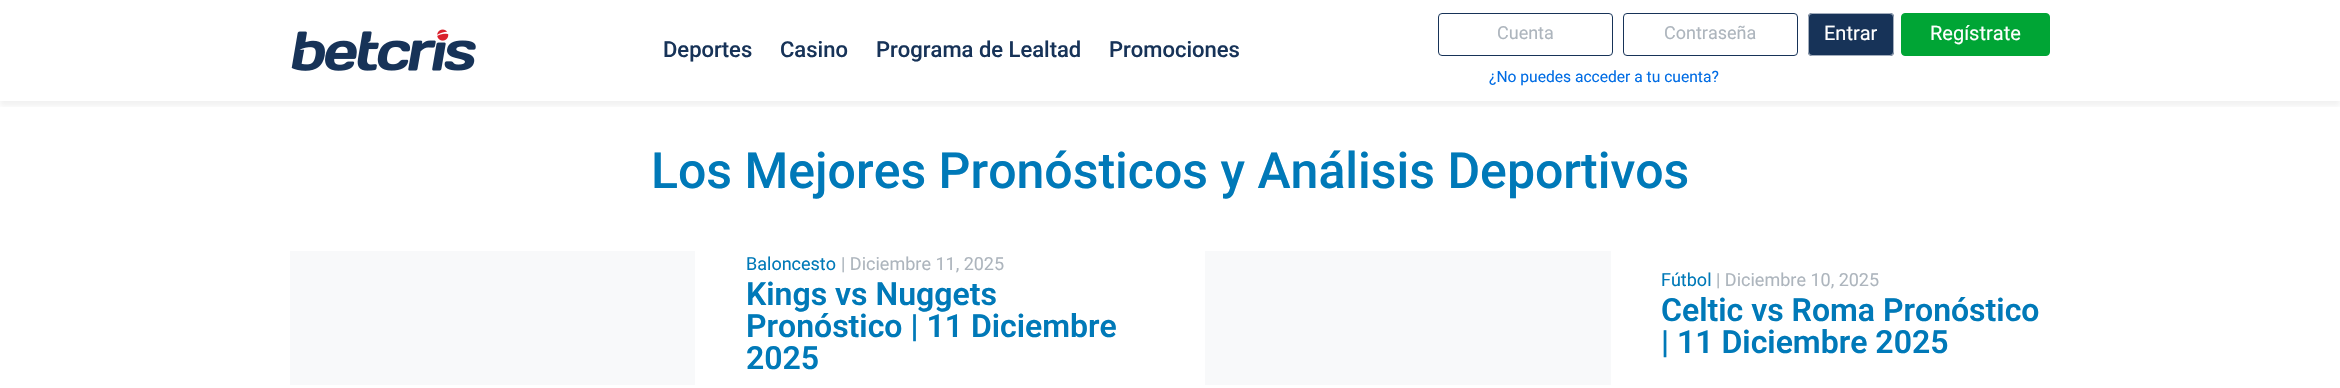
void draw(SkCanvas* canvas) {
    SkPaint paint;
    paint.setAntiAlias(true);
    canvas->clear(0xFFFFFFFF);
    canvas->save();
    canvas->clipRect(SkRect::MakeXYWH(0, 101, 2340, 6));
    paint.setColor(0x0D000000);
    paint.setMaskFilter(SkMaskFilter::MakeBlur(kNormal_SkBlurStyle, 2.5f));
    canvas->drawRect(SkRect::MakeXYWH(0, 5, 2340, 101), paint);
    paint.setMaskFilter(nullptr);
    canvas->restore();
    canvas->drawImageRect(SkImages::DeferredFromEncodedData(SkData::MakeFromFileName("img1.png")), SkRect::MakeXYWH(291, 29, 185, 42), SkSamplingOptions());
    SkFont font1(fontMgr->matchFamilyStyle("Roboto", SkFontStyle(500, SkFontStyle::kNormal_Width, SkFontStyle::kUpright_Slant)), 22);
    font1.setSubpixel(true);
    paint.setColor(0xFF173358);
    canvas->drawString("Deportes", 663, 57, font1, paint);
    canvas->drawString("Casino", 780, 57, font1, paint);
    canvas->drawString("Programa de Lealtad", 876, 57, font1, paint);
    canvas->drawString("Promociones", 1109, 57, font1, paint);
    paint.setStyle(SkPaint::kStroke_Style);
    paint.setStrokeWidth(1);
    canvas->drawRoundRect(SkRect::MakeXYWH(1438.5f, 13.5f, 174, 42), 3.5f, 3.5f, paint);
    SkFont font2(fontMgr->matchFamilyStyle("Roboto", SkFontStyle::Normal()), 18);
    font2.setSubpixel(true);
    paint.setStyle(SkPaint::kFill_Style);
    paint.setColor(0xFFADB5BD);
    canvas->drawString("Cuenta", 1497, 39, font2, paint);
    paint.setStyle(SkPaint::kStroke_Style);
    paint.setColor(0xFF173358);
    canvas->drawRoundRect(SkRect::MakeXYWH(1623.5f, 13.5f, 174, 42), 3.5f, 3.5f, paint);
    paint.setStyle(SkPaint::kFill_Style);
    paint.setColor(0xFFADB5BD);
    canvas->drawString("Contraseña", 1664, 39, font2, paint);
    paint.setColor(0xFF173358);
    canvas->drawRoundRect(SkRect::MakeXYWH(1808, 13, 86, 43), 4, 4, paint);
    paint.setStyle(SkPaint::kStroke_Style);
    paint.setColor(0x99FFFFFF);
    canvas->drawRoundRect(SkRect::MakeXYWH(1808.5f, 13.5f, 85, 42), 3.5f, 3.5f, paint);
    SkFont font3(fontMgr->matchFamilyStyle("Roboto", SkFontStyle::Normal()), 20);
    font3.setSubpixel(true);
    paint.setStyle(SkPaint::kFill_Style);
    paint.setColor(0xFFFFFFFF);
    canvas->drawString("Entrar", 1824, 40, font3, paint);
    SkFont font4(fontMgr->matchFamilyStyle("Roboto", SkFontStyle::Normal()), 15.6f);
    font4.setSubpixel(true);
    paint.setColor(0xFF006CE4);
    canvas->drawString("¿No puedes acceder a tu cuenta?", 1489, 82, font4, paint);
    paint.setColor(0xFF00A535);
    canvas->drawRoundRect(SkRect::MakeXYWH(1901.5f, 13.5f, 148, 42), 3.5f, 3.5f, paint);
    paint.setStyle(SkPaint::kStroke_Style);
    canvas->drawRoundRect(SkRect::MakeXYWH(1901.5f, 13.5f, 148, 42), 3.5f, 3.5f, paint);
    paint.setStyle(SkPaint::kFill_Style);
    paint.setColor(0xFFFFFFFF);
    canvas->drawString("Regístrate", 1930, 40, font3, paint);
    SkFont font5(fontMgr->matchFamilyStyle("Roboto", SkFontStyle(500, SkFontStyle::kNormal_Width, SkFontStyle::kUpright_Slant)), 50);
    font5.setSubpixel(true);
    paint.setColor(0xFF0079B8);
    canvas->drawString("Los Mejores Pronósticos y Análisis Deportivos", 651, 188, font5, paint);
    paint.setColor(0xFFF8F9FA);
    canvas->drawRect(SkRect::MakeXYWH(290, 251, 405, 134), paint);
    paint.setColor(0xFF0079B8);
    canvas->drawString("Baloncesto", 746, 270, font2, paint);
    paint.setColor(0xFFADB5BD);
    canvas->drawString("| Diciembre 11, 2025", 841, 270, font2, paint);
    SkFont font6(fontMgr->matchFamilyStyle("Roboto", SkFontStyle(600, SkFontStyle::kNormal_Width, SkFontStyle::kUpright_Slant)), 32);
    font6.setSubpixel(true);
    paint.setColor(0xFF0079B8);
    canvas->drawString("Kings vs Nuggets", 746, 305, font6, paint);
    canvas->drawString("Pronóstico | 11 Diciembre", 746, 337, font6, paint);
    canvas->drawString("2025", 746, 369, font6, paint);
    paint.setColor(0xFFF8F9FA);
    canvas->drawRect(SkRect::MakeXYWH(1205, 251, 406, 134), paint);
    paint.setColor(0xFF0079B8);
    canvas->drawString("Fútbol", 1661, 286, font2, paint);
    paint.setColor(0xFFADB5BD);
    canvas->drawString("| Diciembre 10, 2025", 1716, 286, font2, paint);
    paint.setColor(0xFF0079B8);
    canvas->drawString("Celtic vs Roma Pronóstico", 1661, 321, font6, paint);
    canvas->drawString("| 11 Diciembre 2025", 1661, 353, font6, paint);
}
